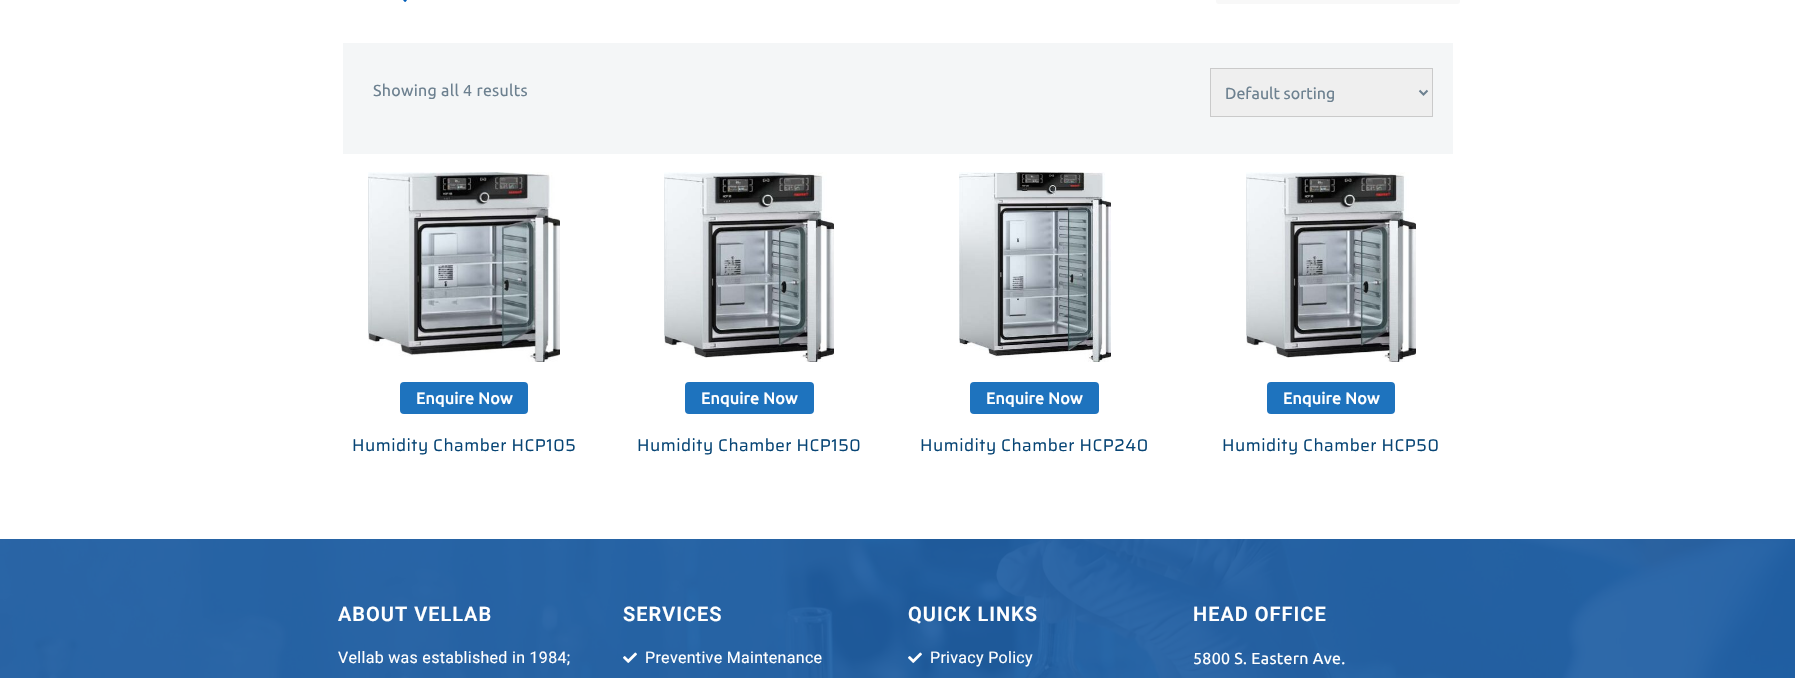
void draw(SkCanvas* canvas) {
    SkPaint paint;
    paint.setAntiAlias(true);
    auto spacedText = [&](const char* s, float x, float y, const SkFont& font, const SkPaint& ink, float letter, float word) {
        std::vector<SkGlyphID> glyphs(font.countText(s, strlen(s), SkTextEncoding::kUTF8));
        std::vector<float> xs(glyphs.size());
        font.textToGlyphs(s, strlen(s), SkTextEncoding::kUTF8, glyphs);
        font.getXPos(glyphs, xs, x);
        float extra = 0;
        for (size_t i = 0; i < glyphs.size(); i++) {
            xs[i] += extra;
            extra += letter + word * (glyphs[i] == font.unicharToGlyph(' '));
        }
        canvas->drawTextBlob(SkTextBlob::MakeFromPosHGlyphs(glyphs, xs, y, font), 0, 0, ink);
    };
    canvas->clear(0xFFFFFFFF);
    canvas->drawImageRect(SkImages::DeferredFromEncodedData(SkData::MakeFromFileName("img1.png")), SkRect::MakeXYWH(403, 0, 4, 2), SkSamplingOptions());
    paint.setColor(0xFFF8F8F8);
    canvas->drawRoundRect(SkRect::MakeXYWH(1216, -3, 244, 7), 3, 3, paint);
    paint.setColor(0xFFF4F6F7);
    canvas->drawRect(SkRect::MakeXYWH(343, 43, 1110, 111), paint);
    SkFont font1(fontMgr->matchFamilyStyle("Ubuntu", SkFontStyle::Normal()), 16);
    font1.setSubpixel(true);
    paint.setColor(0xFF6D8190);
    spacedText("Showing all 4 results", 373, 96, font1, paint, 0.3f, 0);
    paint.setColor(0xFFEFEFEF);
    canvas->drawRect(SkRect::MakeXYWH(1210.5f, 68.5f, 222, 48), paint);
    paint.setStyle(SkPaint::kStroke_Style);
    paint.setStrokeWidth(1);
    paint.setColor(0xFFCACACA);
    canvas->drawRect(SkRect::MakeXYWH(1210.5f, 68.5f, 222, 48), paint);
    paint.setStrokeWidth(2);
    paint.setColor(0xFF6D8190);
    canvas->drawPath(SkPathBuilder().moveTo(1419.5f, 90.5f).lineTo(1423.5f, 94.5f).lineTo(1427.5f, 90.5f).detach(), paint);
    paint.setStyle(SkPaint::kFill_Style);
    canvas->drawString("Default sorting", 1225, 99, font1, paint);
    canvas->drawImageRect(SkImages::DeferredFromEncodedData(SkData::MakeFromFileName("img2.png")), SkRect::MakeXYWH(368, 172, 192, 190), SkSamplingOptions());
    paint.setColor(0xFF1E73BE);
    canvas->drawRoundRect(SkRect::MakeXYWH(400, 382, 128, 32), 4, 4, paint);
    SkFont font2(fontMgr->matchFamilyStyle("Ubuntu", SkFontStyle::Bold()), 16);
    font2.setSubpixel(true);
    paint.setColor(0xFFFFFFFF);
    spacedText("Enquire Now", 416, 404, font2, paint, 0.3f, 0);
    SkFont font3(fontMgr->matchFamilyStyle("Saira", SkFontStyle::Normal()), 17);
    font3.setSubpixel(true);
    paint.setColor(0xFF074575);
    spacedText("Humidity Chamber HCP105", 352, 451, font3, paint, 0.5f, 0);
    canvas->drawImageRect(SkImages::DeferredFromEncodedData(SkData::MakeFromFileName("img3.png")), SkRect::MakeXYWH(664, 172, 170, 190), SkSamplingOptions());
    paint.setColor(0xFF1E73BE);
    canvas->drawRoundRect(SkRect::MakeXYWH(685, 382, 129, 32), 4, 4, paint);
    paint.setColor(0xFFFFFFFF);
    spacedText("Enquire Now", 701, 404, font2, paint, 0.3f, 0);
    paint.setColor(0xFF074575);
    spacedText("Humidity Chamber HCP150", 637, 451, font3, paint, 0.5f, 0);
    canvas->drawImageRect(SkImages::DeferredFromEncodedData(SkData::MakeFromFileName("img4.png")), SkRect::MakeXYWH(959, 172, 152, 190), SkSamplingOptions());
    paint.setColor(0xFF1E73BE);
    canvas->drawRoundRect(SkRect::MakeXYWH(970, 382, 129, 32), 4, 4, paint);
    paint.setColor(0xFFFFFFFF);
    spacedText("Enquire Now", 986, 404, font2, paint, 0.3f, 0);
    paint.setColor(0xFF074575);
    spacedText("Humidity Chamber HCP240", 920, 451, font3, paint, 0.5f, 0);
    canvas->drawImageRect(SkImages::DeferredFromEncodedData(SkData::MakeFromFileName("img5.png")), SkRect::MakeXYWH(1246, 172, 170, 190), SkSamplingOptions());
    paint.setColor(0xFF1E73BE);
    canvas->drawRoundRect(SkRect::MakeXYWH(1267, 382, 128, 32), 4, 4, paint);
    paint.setColor(0xFFFFFFFF);
    spacedText("Enquire Now", 1283, 404, font2, paint, 0.3f, 0);
    paint.setColor(0xFF074575);
    spacedText("Humidity Chamber HCP50", 1222, 451, font3, paint, 0.5f, 0);
    canvas->drawImageRect(SkImages::DeferredFromEncodedData(SkData::MakeFromFileName("img6.png")), SkRect::MakeXYWH(0, 539, 1795, 139), SkSamplingOptions());
    SkFont font4(fontMgr->matchFamilyStyle("Roboto", SkFontStyle(600, SkFontStyle::kNormal_Width, SkFontStyle::kUpright_Slant)), 20);
    font4.setSubpixel(true);
    paint.setColor(0xFFFFFFFF);
    spacedText("ABOUT VELLAB", 338, 621, font4, paint, 1, 0);
    SkFont font5(fontMgr->matchFamilyStyle("Roboto", SkFontStyle::Normal()), 16);
    font5.setSubpixel(true);
    spacedText("Vellab was established in 1984;", 338, 663, font5, paint, 0.3f, 0);
    spacedText("SERVICES", 623, 621, font4, paint, 1, 0);
    canvas->drawImageRect(SkImages::DeferredFromEncodedData(SkData::MakeFromFileName("img7.png")), SkRect::MakeXYWH(623, 652, 14, 11), SkSamplingOptions());
    spacedText("Preventive Maintenance", 645, 663, font5, paint, 0.3f, 0);
    spacedText("QUICK LINKS", 908, 621, font4, paint, 1, 0);
    canvas->drawImageRect(SkImages::DeferredFromEncodedData(SkData::MakeFromFileName("img8.png")), SkRect::MakeXYWH(908, 652, 14, 11), SkSamplingOptions());
    spacedText("Privacy Policy", 930, 663, font5, paint, 0.3f, 0);
    spacedText("HEAD OFFICE", 1193, 621, font4, paint, 1, 0);
    spacedText("5800 S. Eastern Ave.", 1193, 664, font1, paint, 0.3f, 0);
}
